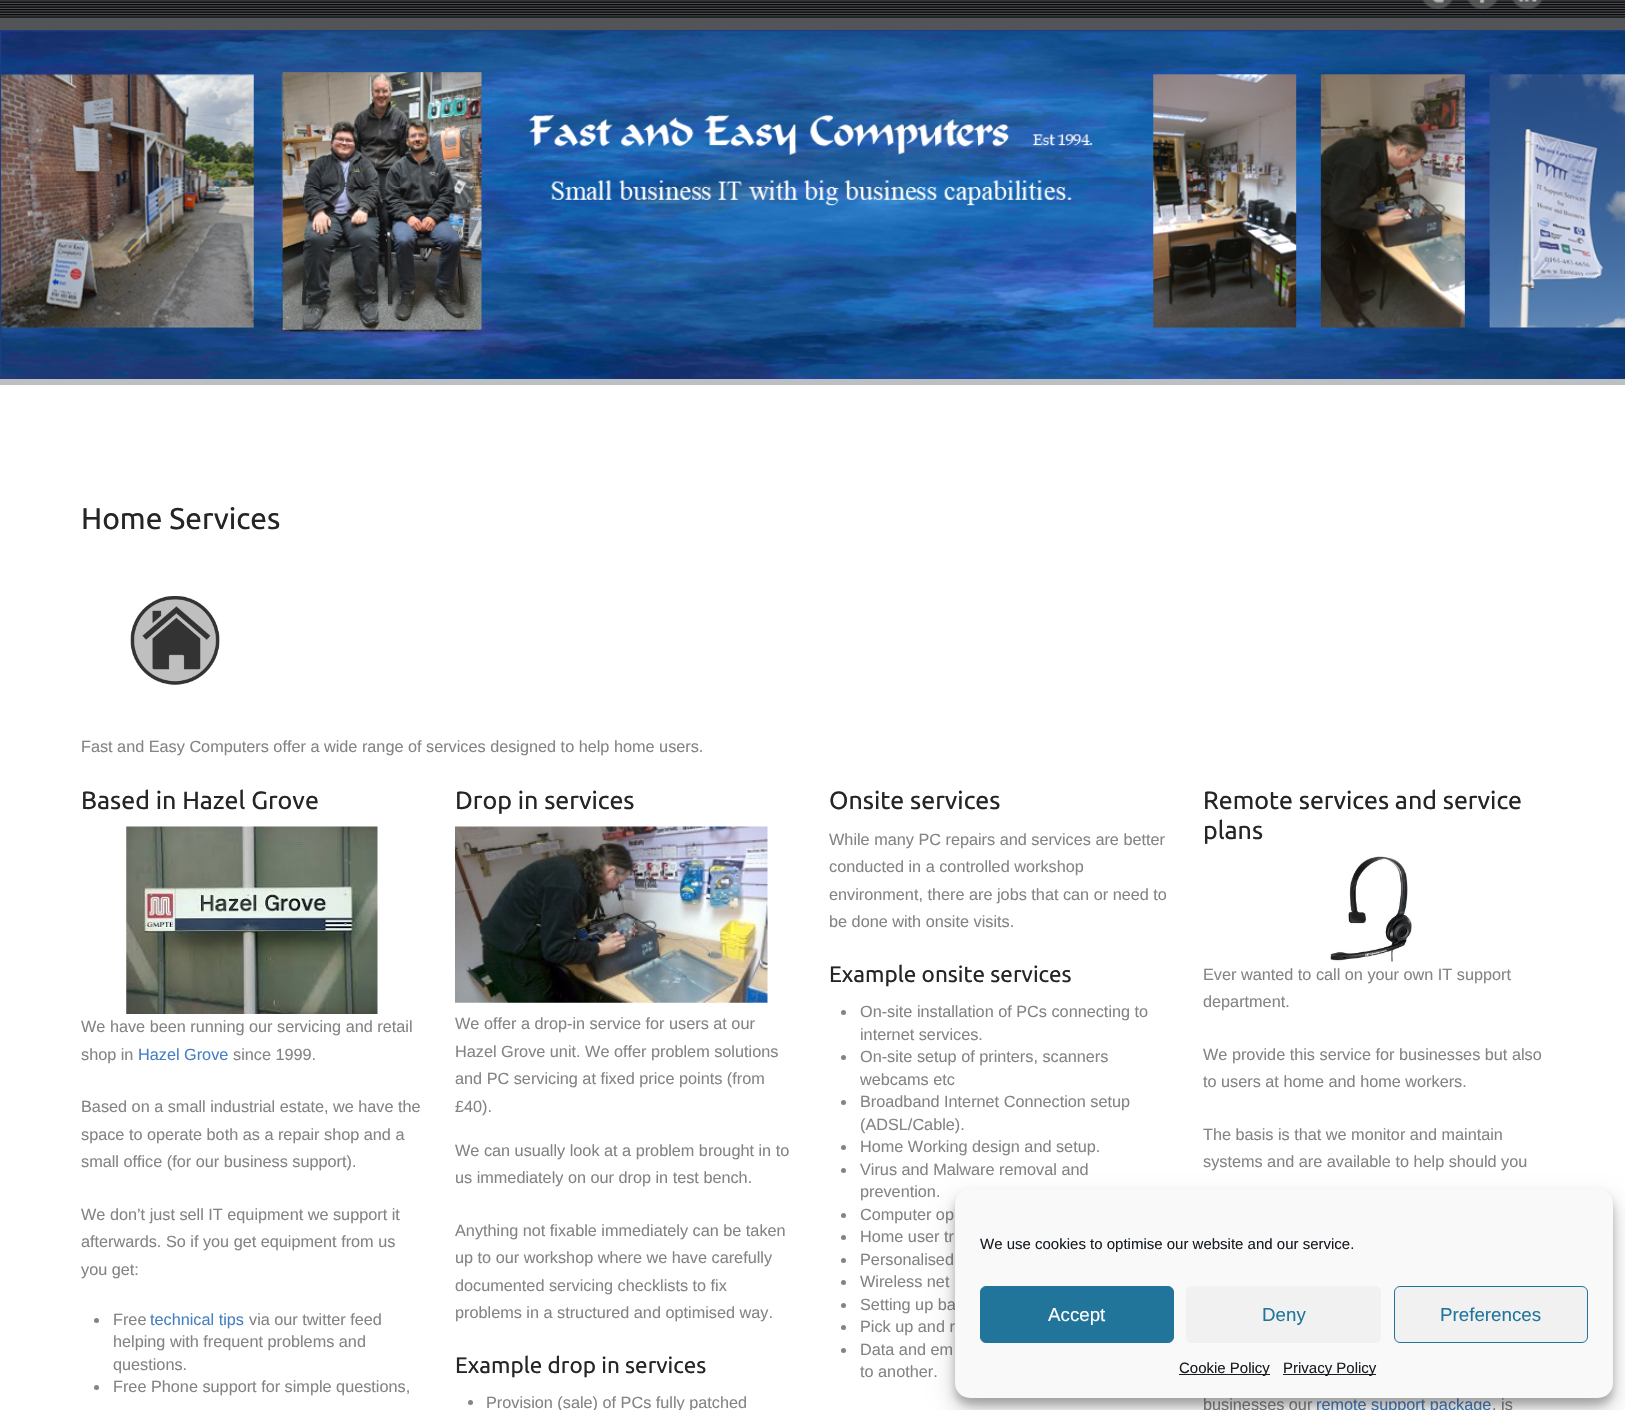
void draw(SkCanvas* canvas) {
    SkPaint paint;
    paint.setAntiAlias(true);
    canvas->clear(0xFFFFFFFF);
    paint.setColor(0xFF4C4E52);
    canvas->drawRect(SkRect::MakeXYWH(0, 0, 1625, 18), paint);
    canvas->drawImageRect(SkImages::DeferredFromEncodedData(SkData::MakeFromFileName("img1.png")), SkRect::MakeXYWH(0, 0, 1625, 18), SkSamplingOptions());
    canvas->drawImageRect(SkImages::DeferredFromEncodedData(SkData::MakeFromFileName("img2.png")), SkRect::MakeXYWH(1422, 0, 31, 9), SkSamplingOptions());
    canvas->drawImageRect(SkImages::DeferredFromEncodedData(SkData::MakeFromFileName("img3.png")), SkRect::MakeXYWH(1467, 0, 31, 9), SkSamplingOptions());
    canvas->drawImageRect(SkImages::DeferredFromEncodedData(SkData::MakeFromFileName("img4.png")), SkRect::MakeXYWH(1512, 0, 31, 9), SkSamplingOptions());
    paint.setColor(0xFF1D3E7F);
    canvas->drawRect(SkRect::MakeXYWH(0, 30, 1625, 349), paint);
    paint.setColor(0xFF525458);
    canvas->drawRect(SkRect::MakeXYWH(0, 18, 1625, 12), paint);
    paint.setColor(0xFFBCC0C3);
    canvas->drawRect(SkRect::MakeXYWH(0, 379, 1625, 6), paint);
    canvas->drawImageRect(SkImages::DeferredFromEncodedData(SkData::MakeFromFileName("img5.png")), SkRect::MakeXYWH(1, 31, 1624, 348), SkSamplingOptions());
    SkFont font1(fontMgr->matchFamilyStyle("Ubuntu", SkFontStyle::Normal()), 30);
    font1.setSubpixel(true);
    paint.setColor(0xFF252525);
    canvas->drawString("Home Services", 81, 529, font1, paint);
    canvas->drawImageRect(SkImages::DeferredFromEncodedData(SkData::MakeFromFileName("img6.png")), SkRect::MakeXYWH(130, 596, 90, 89), SkSamplingOptions());
    SkFont font2(fontMgr->matchFamilyStyle("Liberation Sans", SkFontStyle::Normal()), 16.25f);
    font2.setSubpixel(true);
    paint.setColor(0xFF848484);
    canvas->drawString("Fast and Easy Computers offer a wide range of services designed to help home users.", 81, 752, font2, paint);
    SkFont font3(fontMgr->matchFamilyStyle("Ubuntu", SkFontStyle::Normal()), 25);
    font3.setSubpixel(true);
    paint.setColor(0xFF252525);
    canvas->drawString("Based in Hazel Grove", 81, 809, font3, paint);
    canvas->drawImageRect(SkImages::DeferredFromEncodedData(SkData::MakeFromFileName("img7.png")), SkRect::MakeXYWH(126, 826, 252, 188), SkSamplingOptions());
    paint.setColor(0xFF848484);
    canvas->drawString("We have been running our servicing and retail", 81, 1032, font2, paint);
    canvas->drawString("shop in", 81, 1060, font2, paint);
    paint.setColor(0xFF467FC2);
    canvas->drawString("Hazel Grove", 138, 1060, font2, paint);
    paint.setColor(0xFF848484);
    canvas->drawString("since 1999.", 233, 1060, font2, paint);
    canvas->drawString("Based on a small industrial estate, we have the", 81, 1112, font2, paint);
    canvas->drawString("space to operate both as a repair shop and a", 81, 1140, font2, paint);
    canvas->drawString("small office (for our business support).", 81, 1167, font2, paint);
    canvas->drawString("We don’t just sell IT equipment we support it", 81, 1220, font2, paint);
    canvas->drawString("afterwards. So if you get equipment from us", 81, 1247, font2, paint);
    canvas->drawString("you get:", 81, 1275, font2, paint);
    canvas->drawCircle(96.5f, 1320.5f, 2.5f, paint);
    canvas->drawString("Free", 113, 1325, font2, paint);
    paint.setColor(0xFF467FC2);
    canvas->drawString("technical tips", 150, 1325, font2, paint);
    paint.setColor(0xFF848484);
    canvas->drawString("via our twitter feed", 249, 1325, font2, paint);
    canvas->drawString("helping with frequent problems and", 113, 1347, font2, paint);
    canvas->drawString("questions.", 113, 1370, font2, paint);
    canvas->drawCircle(96.5f, 1387.5f, 2.5f, paint);
    canvas->drawString("Free Phone support for simple questions,", 113, 1392, font2, paint);
    paint.setColor(0xFF252525);
    canvas->drawString("Drop in services", 455, 809, font3, paint);
    canvas->drawImageRect(SkImages::DeferredFromEncodedData(SkData::MakeFromFileName("img8.png")), SkRect::MakeXYWH(455, 826, 313, 177), SkSamplingOptions());
    paint.setColor(0xFF848484);
    canvas->drawString("We offer a drop-in service for users at our", 455, 1029, font2, paint);
    canvas->drawString("Hazel Grove unit. We offer problem solutions", 455, 1057, font2, paint);
    canvas->drawString("and PC servicing at fixed price points (from", 455, 1084, font2, paint);
    canvas->drawString("£40).", 455, 1112, font2, paint);
    canvas->drawString("We can usually look at a problem brought in to", 455, 1156, font2, paint);
    canvas->drawString("us immediately on our drop in test bench.", 455, 1183, font2, paint);
    canvas->drawString("Anything not fixable immediately can be taken", 455, 1236, font2, paint);
    canvas->drawString("up to our workshop where we have carefully", 455, 1263, font2, paint);
    canvas->drawString("documented servicing checklists to fix", 455, 1291, font2, paint);
    canvas->drawString("problems in a structured and optimised way.", 455, 1318, font2, paint);
    SkFont font4(fontMgr->matchFamilyStyle("Ubuntu", SkFontStyle::Normal()), 22.5f);
    font4.setSubpixel(true);
    paint.setColor(0xFF252525);
    canvas->drawString("Example drop in services", 455, 1373, font4, paint);
    paint.setColor(0xFF848484);
    canvas->drawCircle(470.5f, 1402.5f, 2.5f, paint);
    canvas->drawString("Provision (sale) of PCs fully patched", 486, 1408, font2, paint);
    paint.setColor(0xFF252525);
    canvas->drawString("Onsite services", 829, 809, font3, paint);
    paint.setColor(0xFF848484);
    canvas->drawString("While many PC repairs and services are better", 829, 845, font2, paint);
    canvas->drawString("conducted in a controlled workshop", 829, 872, font2, paint);
    canvas->drawString("environment, there are jobs that can or need to", 829, 900, font2, paint);
    canvas->drawString("be done with onsite visits.", 829, 927, font2, paint);
    paint.setColor(0xFF252525);
    canvas->drawString("Example onsite services", 829, 982, font4, paint);
    paint.setColor(0xFF848484);
    canvas->drawCircle(843.5f, 1012.5f, 2.5f, paint);
    canvas->drawString("On-site installation of PCs connecting to", 860, 1017, font2, paint);
    canvas->drawString("internet services.", 860, 1040, font2, paint);
    canvas->drawCircle(843.5f, 1057.5f, 2.5f, paint);
    canvas->drawString("On-site setup of printers, scanners", 860, 1062, font2, paint);
    canvas->drawString("webcams etc", 860, 1085, font2, paint);
    canvas->drawCircle(843.5f, 1102.5f, 2.5f, paint);
    canvas->drawString("Broadband Internet Connection setup", 860, 1107, font2, paint);
    canvas->drawString("(ADSL/Cable).", 860, 1130, font2, paint);
    canvas->drawCircle(843.5f, 1147.5f, 2.5f, paint);
    canvas->drawString("Home Working design and setup.", 860, 1152, font2, paint);
    canvas->drawCircle(843.5f, 1170.5f, 2.5f, paint);
    canvas->drawString("Virus and Malware removal and", 860, 1175, font2, paint);
    canvas->drawString("prevention.", 860, 1197, font2, paint);
    canvas->drawCircle(843.5f, 1215.5f, 2.5f, paint);
    canvas->drawString("Computer op", 860, 1220, font2, paint);
    canvas->drawCircle(843.5f, 1237.5f, 2.5f, paint);
    canvas->drawString("Home user tr", 860, 1242, font2, paint);
    canvas->drawCircle(843.5f, 1260.5f, 2.5f, paint);
    canvas->drawString("Personalised", 860, 1265, font2, paint);
    canvas->drawCircle(843.5f, 1282.5f, 2.5f, paint);
    canvas->drawString("Wireless net", 860, 1287, font2, paint);
    canvas->drawCircle(843.5f, 1305.5f, 2.5f, paint);
    canvas->drawString("Setting up ba", 860, 1310, font2, paint);
    canvas->drawCircle(843.5f, 1327.5f, 2.5f, paint);
    canvas->drawString("Pick up and r", 860, 1332, font2, paint);
    canvas->drawCircle(843.5f, 1350.5f, 2.5f, paint);
    canvas->drawString("Data and em", 860, 1355, font2, paint);
    canvas->drawString("to another.", 860, 1377, font2, paint);
    paint.setColor(0xFF252525);
    canvas->drawString("Remote services and service", 1203, 809, font3, paint);
    canvas->drawString("plans", 1203, 839, font3, paint);
    canvas->drawImageRect(SkImages::DeferredFromEncodedData(SkData::MakeFromFileName("img9.png")), SkRect::MakeXYWH(1330, 856, 82, 106), SkSamplingOptions());
    paint.setColor(0xFF848484);
    canvas->drawString("Ever wanted to call on your own IT support", 1203, 980, font2, paint);
    canvas->drawString("department.", 1203, 1007, font2, paint);
    canvas->drawString("We provide this service for businesses but also", 1203, 1060, font2, paint);
    canvas->drawString("to users at home and home workers.", 1203, 1087, font2, paint);
    canvas->drawString("The basis is that we monitor and maintain", 1203, 1140, font2, paint);
    canvas->drawString("systems and are available to help should you", 1203, 1167, font2, paint);
    canvas->drawString("businesses our", 1203, 1410, font2, paint);
    paint.setColor(0xFF467FC2);
    canvas->drawString("remote support package", 1316, 1410, font2, paint);
    paint.setColor(0xFF848484);
    canvas->drawString(", is", 1492, 1410, font2, paint);
    paint.setColor(0x3B000000);
    paint.setMaskFilter(SkMaskFilter::MakeBlur(kNormal_SkBlurStyle, 4));
    canvas->drawRoundRect(SkRect::MakeXYWH(955, 1196, 658, 209), 15, 15, paint);
    paint.setMaskFilter(nullptr);
    paint.setColor(0x30000000);
    paint.setMaskFilter(SkMaskFilter::MakeBlur(kNormal_SkBlurStyle, 12.5f));
    canvas->drawRoundRect(SkRect::MakeXYWH(955, 1201, 658, 209), 15, 15, paint);
    paint.setMaskFilter(nullptr);
    paint.setColor(0xFFF9F9F9);
    canvas->drawRoundRect(SkRect::MakeXYWH(955, 1189, 658, 209), 15, 15, paint);
    SkFont font5(fontMgr->matchFamilyStyle("Liberation Sans", SkFontStyle::Normal()), 15);
    font5.setSubpixel(true);
    paint.setColor(0xFF191E23);
    canvas->drawString("We use cookies to optimise our website and our service.", 980, 1249, font5, paint);
    paint.setColor(0xFF21759B);
    canvas->drawRoundRect(SkRect::MakeXYWH(980.5f, 1286.5f, 193, 56), 5.5f, 5.5f, paint);
    paint.setStyle(SkPaint::kStroke_Style);
    paint.setStrokeWidth(1);
    canvas->drawRoundRect(SkRect::MakeXYWH(980.5f, 1286.5f, 193, 56), 5.5f, 5.5f, paint);
    SkFont font6(fontMgr->matchFamilyStyle("Liberation Sans", SkFontStyle::Normal()), 18.75f);
    font6.setSubpixel(true);
    paint.setStyle(SkPaint::kFill_Style);
    paint.setColor(0xFFFFFFFF);
    canvas->drawString("Accept", 1048, 1321, font6, paint);
    paint.setColor(0xFFF1F1F1);
    canvas->drawRoundRect(SkRect::MakeXYWH(1186, 1286, 195, 57), 6, 6, paint);
    paint.setColor(0xFF21759B);
    canvas->drawString("Deny", 1262, 1321, font6, paint);
    paint.setColor(0xFFF1F1F1);
    canvas->drawRoundRect(SkRect::MakeXYWH(1394.5f, 1286.5f, 193, 56), 5.5f, 5.5f, paint);
    paint.setStyle(SkPaint::kStroke_Style);
    paint.setColor(0xFF21759B);
    canvas->drawRoundRect(SkRect::MakeXYWH(1394.5f, 1286.5f, 193, 56), 5.5f, 5.5f, paint);
    paint.setStyle(SkPaint::kFill_Style);
    canvas->drawString("Preferences", 1440, 1321, font6, paint);
    paint.setColor(0xFF191E23);
    canvas->drawRect(SkRect::MakeXYWH(1179, 1374, 91, 1), paint);
    canvas->drawString("Cookie Policy", 1179, 1373, font5, paint);
    canvas->drawRect(SkRect::MakeXYWH(1283, 1374, 93, 1), paint);
    canvas->drawString("Privacy Policy", 1283, 1373, font5, paint);
}
